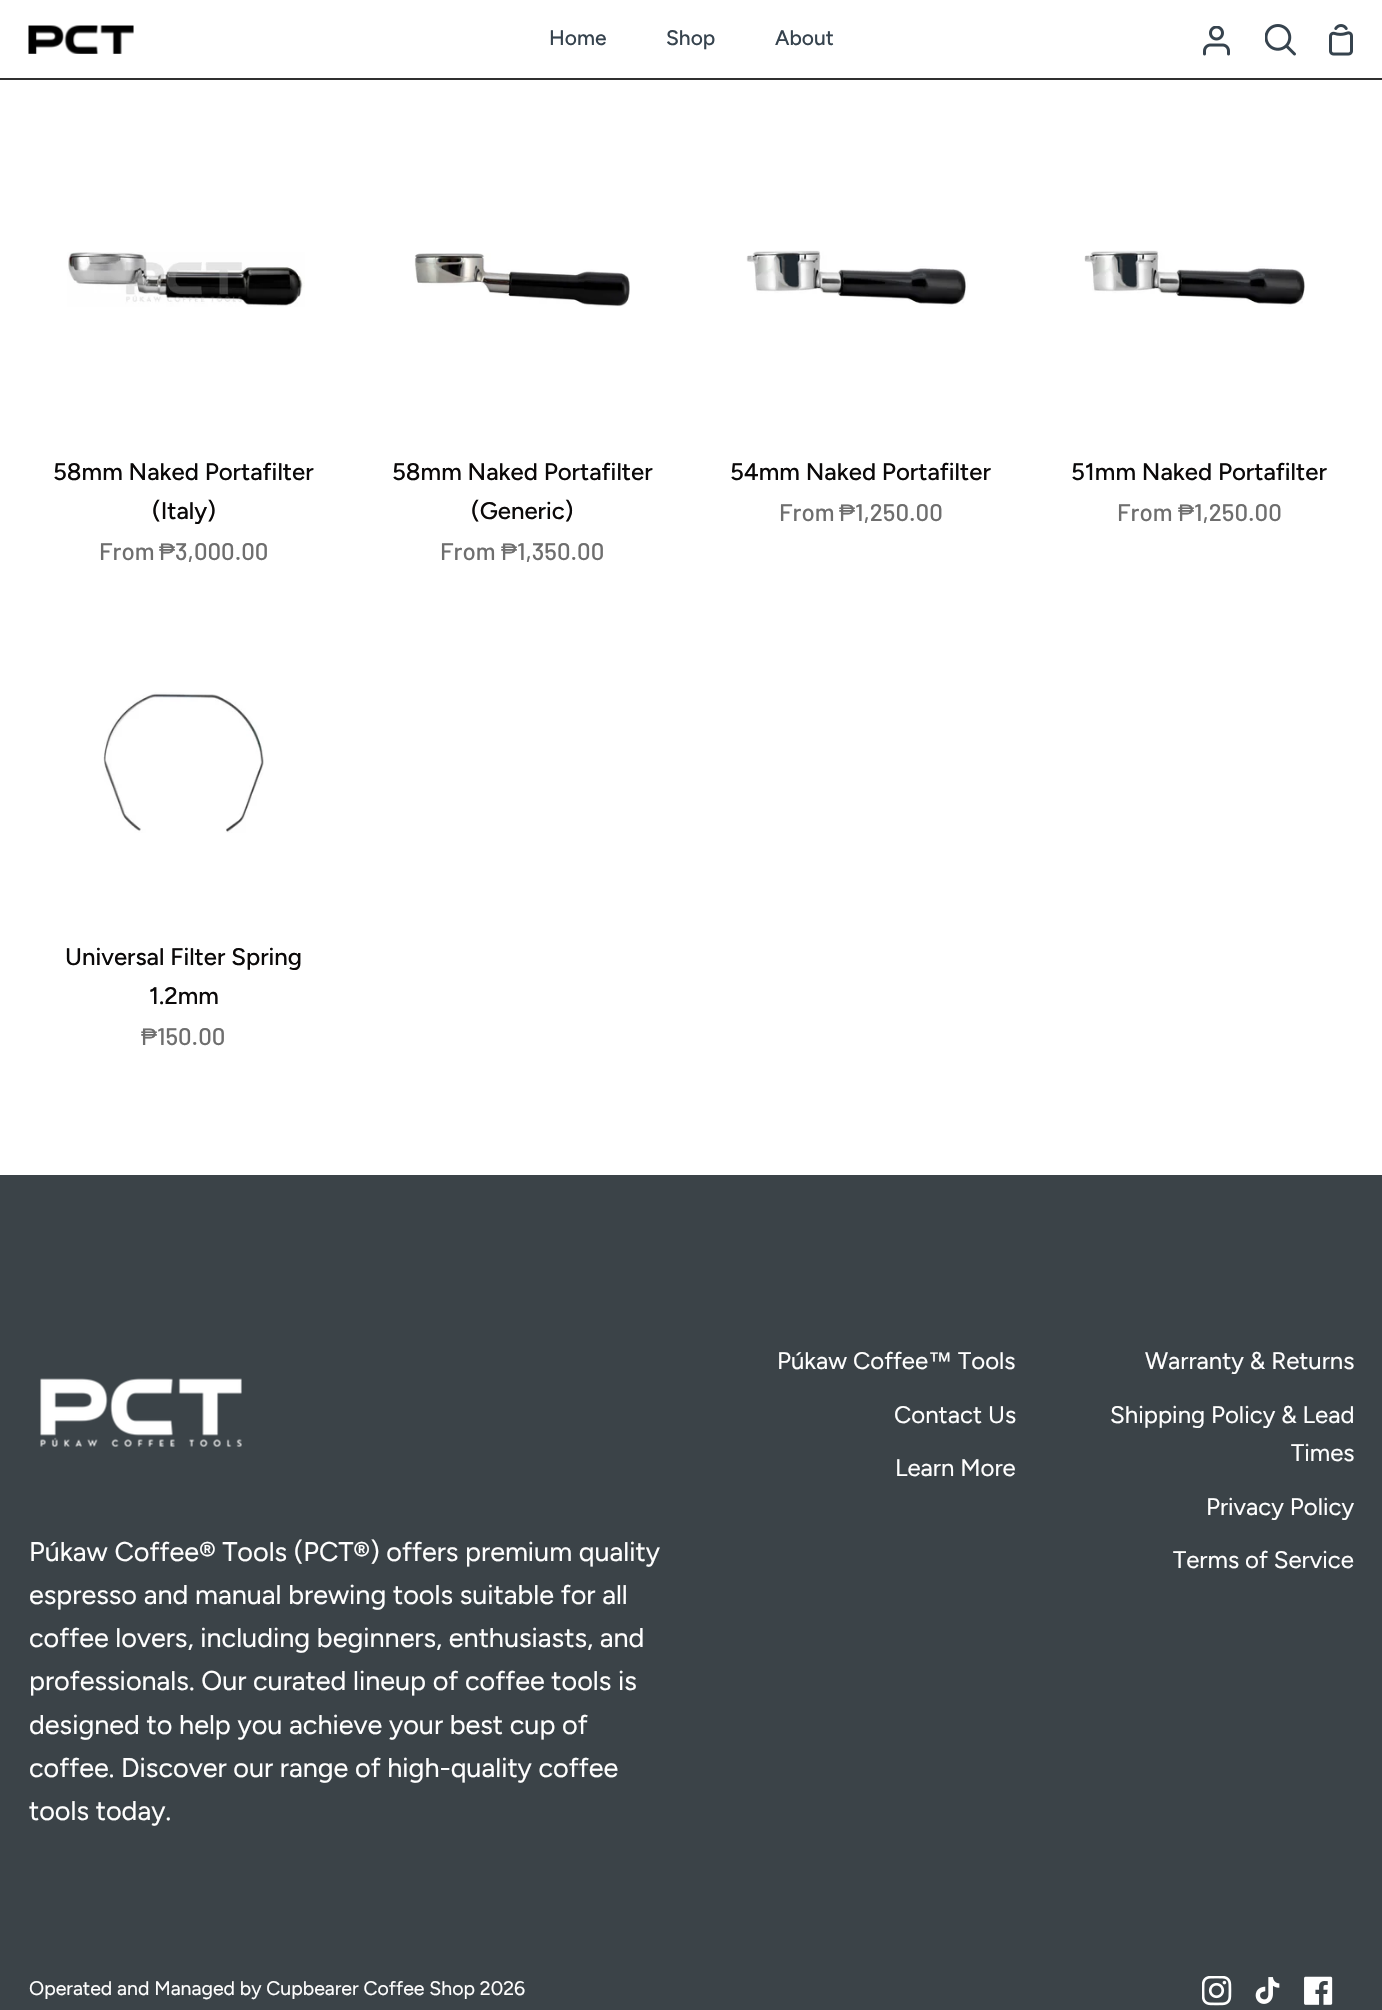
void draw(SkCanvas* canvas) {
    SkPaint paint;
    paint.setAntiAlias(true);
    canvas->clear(0xFFFFFFFF);
    paint.setColor(0xFF303030);
    canvas->drawRect(SkRect::MakeXYWH(0, 78, 1382, 2), paint);
    canvas->drawImageRect(SkImages::DeferredFromEncodedData(SkData::MakeFromFileName("img1.png")), SkRect::MakeXYWH(28, 25, 106, 29), SkSamplingOptions());
    SkFont font1(fontMgr->matchFamilyStyle("Figtree", SkFontStyle(500, SkFontStyle::kNormal_Width, SkFontStyle::kUpright_Slant)), 21);
    font1.setSubpixel(true);
    paint.setColor(0xFF36434E);
    canvas->drawString("Home", 549, 45, font1, paint);
    canvas->drawString("Shop", 666, 45, font1, paint);
    canvas->drawString("About", 775, 45, font1, paint);
    canvas->drawImageRect(SkImages::DeferredFromEncodedData(SkData::MakeFromFileName("img2.png")), SkRect::MakeXYWH(1203, 26, 27, 30), SkSamplingOptions());
    canvas->drawImageRect(SkImages::DeferredFromEncodedData(SkData::MakeFromFileName("img3.png")), SkRect::MakeXYWH(1265, 24, 31, 32), SkSamplingOptions());
    canvas->drawImageRect(SkImages::DeferredFromEncodedData(SkData::MakeFromFileName("img4.png")), SkRect::MakeXYWH(1329, 24, 24, 32), SkSamplingOptions());
    canvas->drawImageRect(SkImages::DeferredFromEncodedData(SkData::MakeFromFileName("img5.png")), SkRect::MakeXYWH(67, 252, 238, 55), SkSamplingOptions());
    SkFont font2(fontMgr->matchFamilyStyle("Figtree", SkFontStyle(500, SkFontStyle::kNormal_Width, SkFontStyle::kUpright_Slant)), 24);
    font2.setSubpixel(true);
    paint.setColor(0xFF0B0909);
    canvas->drawString("58mm Naked Portafilter", 53, 480, font2, paint);
    canvas->drawString("(Italy)", 152, 519, font2, paint);
    SkFont font3(fontMgr->matchFamilyStyle("Barlow", SkFontStyle(500, SkFontStyle::kNormal_Width, SkFontStyle::kUpright_Slant)), 24);
    font3.setSubpixel(true);
    paint.setColor(0xFF6E6E6E);
    canvas->drawString("From", 99, 560, font3, paint);
    SkFont font4(fontMgr->matchFamilyStyle("Liberation Sans", SkFontStyle::Normal()), 24);
    font4.setSubpixel(true);
    canvas->drawString("₱", 159, 560, font4, paint);
    canvas->drawString("3,000.00", 175, 560, font3, paint);
    canvas->drawImageRect(SkImages::DeferredFromEncodedData(SkData::MakeFromFileName("img6.png")), SkRect::MakeXYWH(414, 253, 216, 54), SkSamplingOptions());
    paint.setColor(0xFF0B0909);
    canvas->drawString("58mm Naked Portafilter", 392, 480, font2, paint);
    canvas->drawString("(Generic)", 471, 519, font2, paint);
    paint.setColor(0xFF6E6E6E);
    canvas->drawString("From", 440, 560, font3, paint);
    canvas->drawString("₱", 501, 560, font4, paint);
    canvas->drawString("1,350.00", 517, 560, font3, paint);
    canvas->drawImageRect(SkImages::DeferredFromEncodedData(SkData::MakeFromFileName("img7.png")), SkRect::MakeXYWH(746, 250, 222, 57), SkSamplingOptions());
    paint.setColor(0xFF0B0909);
    canvas->drawString("54mm Naked Portafilter", 730, 480, font2, paint);
    paint.setColor(0xFF6E6E6E);
    canvas->drawString("From", 779, 521, font3, paint);
    canvas->drawString("₱", 839, 521, font4, paint);
    canvas->drawString("1,250.00", 855, 521, font3, paint);
    canvas->drawImageRect(SkImages::DeferredFromEncodedData(SkData::MakeFromFileName("img8.png")), SkRect::MakeXYWH(1084, 250, 221, 57), SkSamplingOptions());
    paint.setColor(0xFF0B0909);
    canvas->drawString("51mm Naked Portafilter", 1071, 480, font2, paint);
    paint.setColor(0xFF6E6E6E);
    canvas->drawString("From", 1117, 521, font3, paint);
    canvas->drawString("₱", 1178, 521, font4, paint);
    canvas->drawString("1,250.00", 1194, 521, font3, paint);
    canvas->drawImageRect(SkImages::DeferredFromEncodedData(SkData::MakeFromFileName("img9.png")), SkRect::MakeXYWH(103, 692, 161, 141), SkSamplingOptions());
    paint.setColor(0xFF0B0909);
    canvas->drawString("Universal Filter Spring", 65, 965, font2, paint);
    canvas->drawString("1.2mm", 149, 1004, font2, paint);
    paint.setColor(0xFF6E6E6E);
    canvas->drawString("₱", 141, 1045, font4, paint);
    canvas->drawString("150.00", 157, 1045, font3, paint);
    paint.setColor(0xFF3B4348);
    canvas->drawRect(SkRect::MakeXYWH(0, 1175, 1382, 835), paint);
    SkFont font5(fontMgr->matchFamilyStyle("Figtree", SkFontStyle::Normal()), 24);
    font5.setSubpixel(true);
    paint.setColor(0xFFFFFFFF);
    canvas->drawString("Púkaw Coffee", 777, 1369, font5, paint);
    canvas->drawString("™", 928, 1369, font4, paint);
    canvas->drawString("Tools", 958, 1369, font5, paint);
    canvas->drawString("Contact Us", 894, 1423, font5, paint);
    canvas->drawString("Learn More", 895, 1476, font5, paint);
    canvas->drawString("Warranty & Returns", 1145, 1369, font5, paint);
    canvas->drawString("Shipping Policy & Lead", 1110, 1423, font5, paint);
    canvas->drawString("Times", 1291, 1461, font5, paint);
    canvas->drawString("Privacy Policy", 1206, 1515, font5, paint);
    canvas->drawString("Terms of Service", 1173, 1568, font5, paint);
    canvas->drawImageRect(SkImages::DeferredFromEncodedData(SkData::MakeFromFileName("img10.png")), SkRect::MakeXYWH(40, 1378, 202, 69), SkSamplingOptions());
    SkFont font6(fontMgr->matchFamilyStyle("Figtree", SkFontStyle::Normal()), 27);
    font6.setSubpixel(true);
    canvas->drawString("Púkaw Coffee® Tools (PCT®) offers premium quality", 29, 1561, font6, paint);
    canvas->drawString("espresso and manual brewing tools suitable for all", 29, 1604, font6, paint);
    canvas->drawString("coffee lovers, including beginners, enthusiasts, and", 29, 1647, font6, paint);
    canvas->drawString("professionals. Our curated lineup of coffee tools is", 29, 1690, font6, paint);
    canvas->drawString("designed to help you achieve your best cup of", 29, 1734, font6, paint);
    canvas->drawString("coffee. Discover our range of high-quality coffee", 29, 1777, font6, paint);
    canvas->drawString("tools today.", 29, 1820, font6, paint);
    SkFont font7(fontMgr->matchFamilyStyle("Figtree", SkFontStyle::Normal()), 19.5f);
    font7.setSubpixel(true);
    canvas->drawString("Operated and Managed by Cupbearer Coffee Shop 2026", 29, 1995, font7, paint);
    canvas->drawImageRect(SkImages::DeferredFromEncodedData(SkData::MakeFromFileName("img11.png")), SkRect::MakeXYWH(1202, 1976, 30, 30), SkSamplingOptions());
    canvas->drawImageRect(SkImages::DeferredFromEncodedData(SkData::MakeFromFileName("img12.png")), SkRect::MakeXYWH(1255, 1977, 25, 27), SkSamplingOptions());
    canvas->drawImageRect(SkImages::DeferredFromEncodedData(SkData::MakeFromFileName("img13.png")), SkRect::MakeXYWH(1304, 1976, 29, 29), SkSamplingOptions());
}
